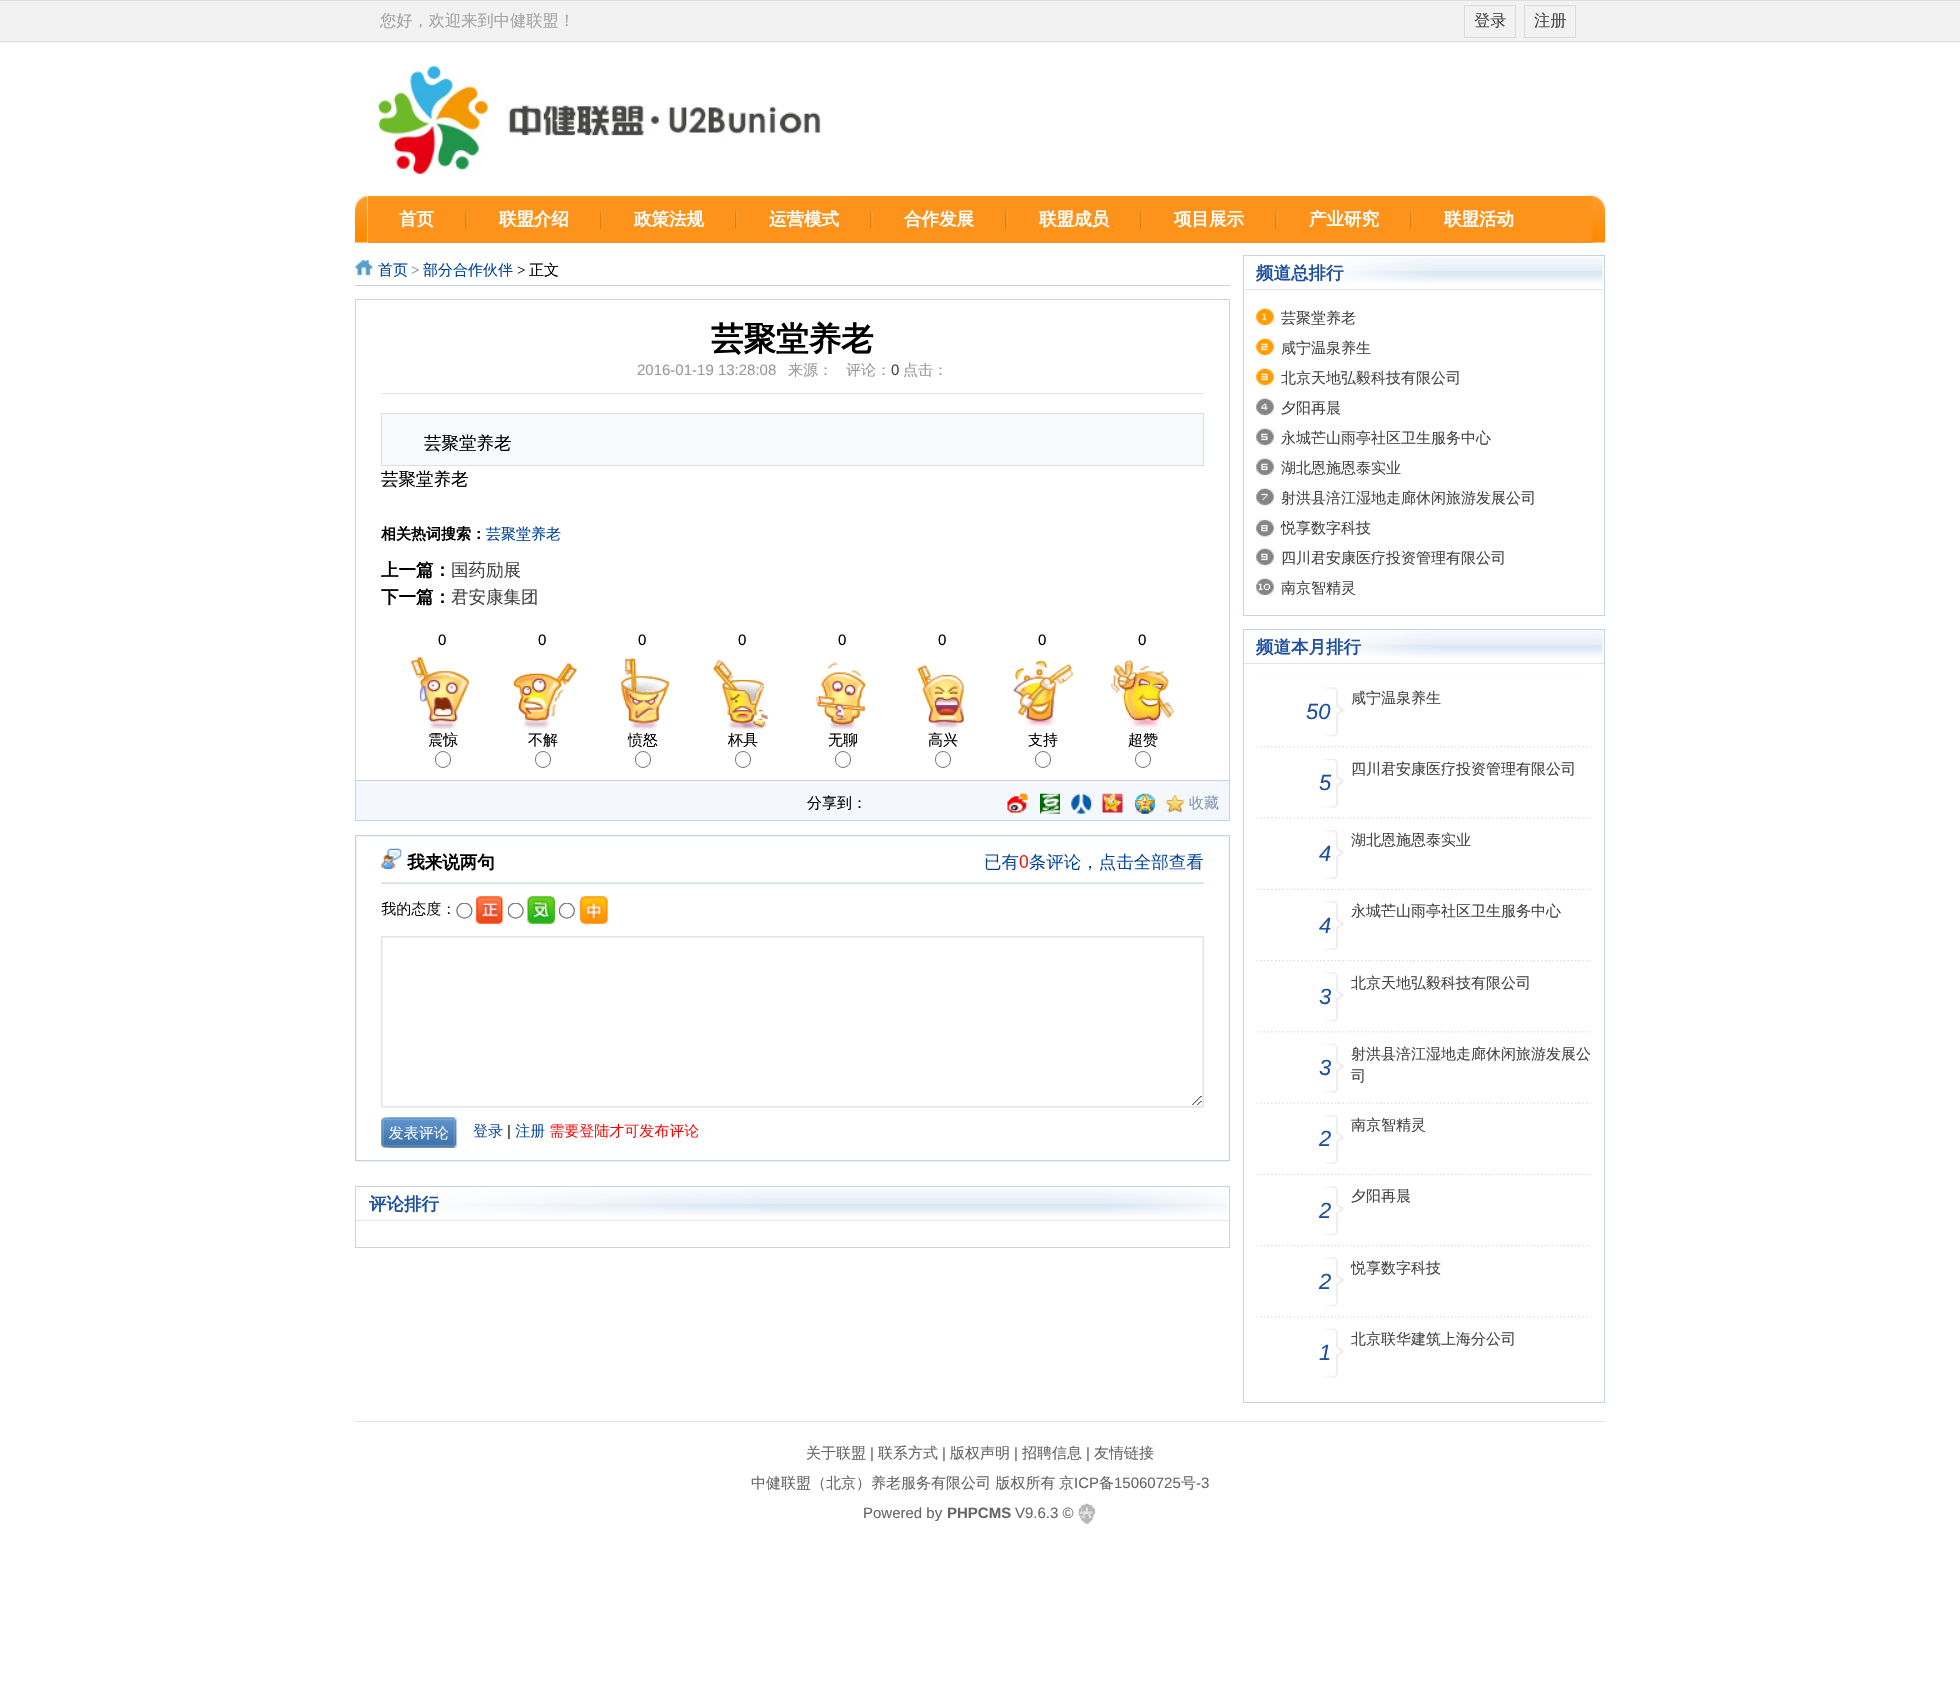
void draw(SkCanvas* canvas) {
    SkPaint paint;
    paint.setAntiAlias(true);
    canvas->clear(0xFFFFFFFF);
    paint.setColor(0xFFF3F2F2);
    canvas->drawRect(SkRect::MakeXYWH(0, 1, 1960, 42), paint);
    paint.setColor(0xFFDFDFDF);
    canvas->drawRect(SkRect::MakeXYWH(0, 0, 1960, 1), paint);
    canvas->drawRect(SkRect::MakeXYWH(0, 41, 1960, 1), paint);
    SkFont font1(fontMgr->matchFamilyStyle("WenQuanYi Zen Hei", SkFontStyle(500, SkFontStyle::kNormal_Width, SkFontStyle::kUpright_Slant)), 16.25f);
    font1.setSubpixel(true);
    paint.setColor(0xFFA5A5A5);
    canvas->drawString("您好，欢迎来到中健联盟！", 380, 26, font1, paint);
    paint.setStyle(SkPaint::kStroke_Style);
    paint.setStrokeWidth(1);
    paint.setColor(0xFFDADADA);
    canvas->drawRect(SkRect::MakeXYWH(1464.5f, 5.5f, 51, 32), paint);
    paint.setStyle(SkPaint::kFill_Style);
    paint.setColor(0xFF444444);
    canvas->drawString("登录", 1474, 26, font1, paint);
    paint.setStyle(SkPaint::kStroke_Style);
    paint.setColor(0xFFDADADA);
    canvas->drawRect(SkRect::MakeXYWH(1524.5f, 5.5f, 51, 32), paint);
    paint.setStyle(SkPaint::kFill_Style);
    paint.setColor(0xFF444444);
    canvas->drawString("注册", 1534, 26, font1, paint);
    canvas->drawImageRect(SkImages::DeferredFromEncodedData(SkData::MakeFromFileName("img2.png")), SkRect::MakeXYWH(355, 196, 13, 47), SkSamplingOptions());
    paint.setColor(0xFFFD931B);
    canvas->drawRect(SkRect::MakeXYWH(368, 196, 1225, 47), paint);
    canvas->drawImageRect(SkImages::DeferredFromEncodedData(SkData::MakeFromFileName("img1.png")), SkRect::MakeXYWH(363, 66, 479, 131), SkSamplingOptions());
    SkFont font2(fontMgr->matchFamilyStyle("WenQuanYi Zen Hei", SkFontStyle::Bold()), 17.5f);
    font2.setSubpixel(true);
    paint.setColor(0xFFFFFFFF);
    canvas->drawString("首页", 399, 225, font2, paint);
    canvas->drawImageRect(SkImages::DeferredFromEncodedData(SkData::MakeFromFileName("img3.png")), SkRect::MakeXYWH(465, 211, 3, 18), SkSamplingOptions());
    canvas->drawString("联盟介绍", 499, 225, font2, paint);
    canvas->drawImageRect(SkImages::DeferredFromEncodedData(SkData::MakeFromFileName("img3.png")), SkRect::MakeXYWH(600, 211, 3, 18), SkSamplingOptions());
    canvas->drawString("政策法规", 634, 225, font2, paint);
    canvas->drawImageRect(SkImages::DeferredFromEncodedData(SkData::MakeFromFileName("img3.png")), SkRect::MakeXYWH(735, 211, 3, 18), SkSamplingOptions());
    canvas->drawString("运营模式", 769, 225, font2, paint);
    canvas->drawImageRect(SkImages::DeferredFromEncodedData(SkData::MakeFromFileName("img3.png")), SkRect::MakeXYWH(870, 211, 3, 18), SkSamplingOptions());
    canvas->drawString("合作发展", 904, 225, font2, paint);
    canvas->drawImageRect(SkImages::DeferredFromEncodedData(SkData::MakeFromFileName("img3.png")), SkRect::MakeXYWH(1005, 211, 3, 18), SkSamplingOptions());
    canvas->drawString("联盟成员", 1039, 225, font2, paint);
    canvas->drawImageRect(SkImages::DeferredFromEncodedData(SkData::MakeFromFileName("img3.png")), SkRect::MakeXYWH(1140, 211, 3, 18), SkSamplingOptions());
    canvas->drawString("项目展示", 1174, 225, font2, paint);
    canvas->drawImageRect(SkImages::DeferredFromEncodedData(SkData::MakeFromFileName("img3.png")), SkRect::MakeXYWH(1275, 211, 3, 18), SkSamplingOptions());
    canvas->drawString("产业研究", 1309, 225, font2, paint);
    canvas->drawImageRect(SkImages::DeferredFromEncodedData(SkData::MakeFromFileName("img3.png")), SkRect::MakeXYWH(1410, 211, 3, 18), SkSamplingOptions());
    canvas->drawString("联盟活动", 1444, 225, font2, paint);
    canvas->drawImageRect(SkImages::DeferredFromEncodedData(SkData::MakeFromFileName("img4.png")), SkRect::MakeXYWH(1592, 196, 13, 47), SkSamplingOptions());
    canvas->drawImageRect(SkImages::DeferredFromEncodedData(SkData::MakeFromFileName("img5.png")), SkRect::MakeXYWH(355, 259, 18, 17), SkSamplingOptions());
    paint.setColor(0xFFC3D4E7);
    canvas->drawRect(SkRect::MakeXYWH(355, 285, 875, 1), paint);
    SkFont font3(fontMgr->matchFamilyStyle("WenQuanYi Zen Hei", SkFontStyle(500, SkFontStyle::kNormal_Width, SkFontStyle::kUpright_Slant)), 15);
    font3.setSubpixel(true);
    paint.setColor(0xFF004499);
    canvas->drawString("首页", 378, 275, font3, paint);
    SkFont font4(fontMgr->matchFamilyStyle("Liberation Serif", SkFontStyle::Normal()), 15);
    font4.setSubpixel(true);
    paint.setColor(0xFF7E7E7E);
    canvas->drawString(">", 411, 275, font4, paint);
    paint.setColor(0xFF004499);
    canvas->drawString("部分合作伙伴", 423, 275, font3, paint);
    paint.setColor(0xFF000000);
    canvas->drawString(">", 517, 275, font4, paint);
    canvas->drawString("正文", 529, 275, font3, paint);
    paint.setStyle(SkPaint::kStroke_Style);
    paint.setColor(0xFFC3D4E7);
    canvas->drawRect(SkRect::MakeXYWH(355.5f, 299.5f, 874, 481), paint);
    paint.setStyle(SkPaint::kFill_Style);
    paint.setColor(0xFFE5E5E5);
    canvas->drawRect(SkRect::MakeXYWH(381, 393, 823, 1), paint);
    SkFont font5(fontMgr->matchFamilyStyle("WenQuanYi Zen Hei", SkFontStyle::Bold()), 32.5f);
    font5.setSubpixel(true);
    paint.setColor(0xFF000000);
    canvas->drawString("芸聚堂养老", 711, 350, font5, paint);
    SkFont font6(fontMgr->matchFamilyStyle("Liberation Sans", SkFontStyle::Normal()), 15);
    font6.setSubpixel(true);
    paint.setColor(0xFF999999);
    canvas->drawString("2016-01-19 13:28:08", 637, 375, font6, paint);
    canvas->drawString("来源：", 788, 375, font3, paint);
    canvas->drawString("评论：", 846, 375, font3, paint);
    paint.setColor(0xFF444444);
    canvas->drawString("0", 891, 375, font6, paint);
    paint.setColor(0xFF999999);
    canvas->drawString("点击：", 903, 375, font3, paint);
    paint.setColor(0xFFF6FAFD);
    canvas->drawRect(SkRect::MakeXYWH(381.5f, 413.5f, 822, 52), paint);
    paint.setStyle(SkPaint::kStroke_Style);
    paint.setColor(0xFFDCDDDD);
    canvas->drawRect(SkRect::MakeXYWH(381.5f, 413.5f, 822, 52), paint);
    SkFont font7(fontMgr->matchFamilyStyle("WenQuanYi Zen Hei", SkFontStyle(500, SkFontStyle::kNormal_Width, SkFontStyle::kUpright_Slant)), 17.5f);
    font7.setSubpixel(true);
    paint.setStyle(SkPaint::kFill_Style);
    paint.setColor(0xFF000000);
    canvas->drawString("芸聚堂养老", 424, 449, font7, paint);
    canvas->drawString("芸聚堂养老", 381, 485, font7, paint);
    SkFont font8(fontMgr->matchFamilyStyle("WenQuanYi Zen Hei", SkFontStyle::Bold()), 15);
    font8.setSubpixel(true);
    canvas->drawString("相关热词搜索：", 381, 539, font8, paint);
    paint.setColor(0xFF004499);
    canvas->drawString("芸聚堂养老", 486, 539, font3, paint);
    paint.setColor(0xFF000000);
    canvas->drawString("上一篇：", 381, 576, font2, paint);
    paint.setColor(0xFF444444);
    canvas->drawString("国药励展", 451, 576, font7, paint);
    paint.setColor(0xFF000000);
    canvas->drawString("下一篇：", 381, 603, font2, paint);
    paint.setColor(0xFF444444);
    canvas->drawString("君安康集团", 451, 603, font7, paint);
    paint.setColor(0xFF000000);
    canvas->drawString("0", 438, 645, font6, paint);
    canvas->drawImageRect(SkImages::DeferredFromEncodedData(SkData::MakeFromFileName("img6.png")), SkRect::MakeXYWH(410, 657, 59, 72), SkSamplingOptions());
    canvas->drawString("震惊", 428, 745, font3, paint);
    paint.setStyle(SkPaint::kStroke_Style);
    paint.setColor(0xFF767676);
    canvas->drawRoundRect(SkRect::MakeXYWH(435.5f, 751.5f, 15, 16), 7.5f, 7.5f, paint);
    paint.setStyle(SkPaint::kFill_Style);
    paint.setColor(0xFF000000);
    canvas->drawString("0", 538, 645, font6, paint);
    canvas->drawImageRect(SkImages::DeferredFromEncodedData(SkData::MakeFromFileName("img7.png")), SkRect::MakeXYWH(513, 662, 65, 67), SkSamplingOptions());
    canvas->drawString("不解", 528, 745, font3, paint);
    paint.setStyle(SkPaint::kStroke_Style);
    paint.setColor(0xFF767676);
    canvas->drawRoundRect(SkRect::MakeXYWH(535.5f, 751.5f, 15, 16), 7.5f, 7.5f, paint);
    paint.setStyle(SkPaint::kFill_Style);
    paint.setColor(0xFF000000);
    canvas->drawString("0", 638, 645, font6, paint);
    canvas->drawImageRect(SkImages::DeferredFromEncodedData(SkData::MakeFromFileName("img8.png")), SkRect::MakeXYWH(621, 658, 48, 71), SkSamplingOptions());
    canvas->drawString("愤怒", 628, 745, font3, paint);
    paint.setStyle(SkPaint::kStroke_Style);
    paint.setColor(0xFF767676);
    canvas->drawRoundRect(SkRect::MakeXYWH(635.5f, 751.5f, 15, 16), 7.5f, 7.5f, paint);
    paint.setStyle(SkPaint::kFill_Style);
    paint.setColor(0xFF000000);
    canvas->drawString("0", 738, 645, font6, paint);
    canvas->drawImageRect(SkImages::DeferredFromEncodedData(SkData::MakeFromFileName("img9.png")), SkRect::MakeXYWH(712, 659, 56, 70), SkSamplingOptions());
    canvas->drawString("杯具", 728, 745, font3, paint);
    paint.setStyle(SkPaint::kStroke_Style);
    paint.setColor(0xFF767676);
    canvas->drawRoundRect(SkRect::MakeXYWH(735.5f, 751.5f, 15, 16), 7.5f, 7.5f, paint);
    paint.setStyle(SkPaint::kFill_Style);
    paint.setColor(0xFF000000);
    canvas->drawString("0", 838, 645, font6, paint);
    canvas->drawImageRect(SkImages::DeferredFromEncodedData(SkData::MakeFromFileName("img10.png")), SkRect::MakeXYWH(815, 662, 51, 67), SkSamplingOptions());
    canvas->drawString("无聊", 828, 745, font3, paint);
    paint.setStyle(SkPaint::kStroke_Style);
    paint.setColor(0xFF767676);
    canvas->drawRoundRect(SkRect::MakeXYWH(835.5f, 751.5f, 15, 16), 7.5f, 7.5f, paint);
    paint.setStyle(SkPaint::kFill_Style);
    paint.setColor(0xFF000000);
    canvas->drawString("0", 938, 645, font6, paint);
    canvas->drawImageRect(SkImages::DeferredFromEncodedData(SkData::MakeFromFileName("img11.png")), SkRect::MakeXYWH(917, 664, 47, 65), SkSamplingOptions());
    canvas->drawString("高兴", 928, 745, font3, paint);
    paint.setStyle(SkPaint::kStroke_Style);
    paint.setColor(0xFF767676);
    canvas->drawRoundRect(SkRect::MakeXYWH(935.5f, 751.5f, 15, 16), 7.5f, 7.5f, paint);
    paint.setStyle(SkPaint::kFill_Style);
    paint.setColor(0xFF000000);
    canvas->drawString("0", 1038, 645, font6, paint);
    canvas->drawImageRect(SkImages::DeferredFromEncodedData(SkData::MakeFromFileName("img12.png")), SkRect::MakeXYWH(1013, 660, 61, 67), SkSamplingOptions());
    canvas->drawString("支持", 1028, 745, font3, paint);
    paint.setStyle(SkPaint::kStroke_Style);
    paint.setColor(0xFF767676);
    canvas->drawRoundRect(SkRect::MakeXYWH(1035.5f, 751.5f, 15, 16), 7.5f, 7.5f, paint);
    paint.setStyle(SkPaint::kFill_Style);
    paint.setColor(0xFF000000);
    canvas->drawString("0", 1138, 645, font6, paint);
    canvas->drawImageRect(SkImages::DeferredFromEncodedData(SkData::MakeFromFileName("img13.png")), SkRect::MakeXYWH(1111, 659, 63, 69), SkSamplingOptions());
    canvas->drawString("超赞", 1128, 745, font3, paint);
    paint.setStyle(SkPaint::kStroke_Style);
    paint.setColor(0xFF767676);
    canvas->drawRoundRect(SkRect::MakeXYWH(1135.5f, 751.5f, 15, 16), 7.5f, 7.5f, paint);
    paint.setStyle(SkPaint::kFill_Style);
    paint.setColor(0xFFF4F8FD);
    canvas->drawRect(SkRect::MakeXYWH(355.5f, 780.5f, 874, 40), paint);
    paint.setStyle(SkPaint::kStroke_Style);
    paint.setColor(0xFFC3D4E7);
    canvas->drawRect(SkRect::MakeXYWH(355.5f, 780.5f, 874, 40), paint);
    paint.setStyle(SkPaint::kFill_Style);
    paint.setColor(0xFF000000);
    canvas->drawString("分享到：", 807, 808, font3, paint);
    canvas->drawImageRect(SkImages::DeferredFromEncodedData(SkData::MakeFromFileName("img14.png")), SkRect::MakeXYWH(1007, 793, 21, 20), SkSamplingOptions());
    canvas->drawImageRect(SkImages::DeferredFromEncodedData(SkData::MakeFromFileName("img15.png")), SkRect::MakeXYWH(1040, 793, 20, 21), SkSamplingOptions());
    canvas->drawImageRect(SkImages::DeferredFromEncodedData(SkData::MakeFromFileName("img16.png")), SkRect::MakeXYWH(1071, 793, 21, 21), SkSamplingOptions());
    canvas->drawImageRect(SkImages::DeferredFromEncodedData(SkData::MakeFromFileName("img17.png")), SkRect::MakeXYWH(1102, 793, 21, 20), SkSamplingOptions());
    canvas->drawImageRect(SkImages::DeferredFromEncodedData(SkData::MakeFromFileName("img18.png")), SkRect::MakeXYWH(1135, 793, 20, 21), SkSamplingOptions());
    canvas->drawImageRect(SkImages::DeferredFromEncodedData(SkData::MakeFromFileName("img19.png")), SkRect::MakeXYWH(1166, 794, 20, 19), SkSamplingOptions());
    paint.setColor(0xFF8896B1);
    canvas->drawString("收藏", 1189, 808, font3, paint);
    canvas->drawImageRect(SkImages::DeferredFromEncodedData(SkData::MakeFromFileName("img20.png")), SkRect::MakeXYWH(355, 835, 875, 327), SkSamplingOptions());
    paint.setStyle(SkPaint::kStroke_Style);
    paint.setColor(0xFFC3D4E7);
    canvas->drawRect(SkRect::MakeXYWH(355.5f, 1186.5f, 874, 61), paint);
    canvas->drawImageRect(SkImages::DeferredFromEncodedData(SkData::MakeFromFileName("img21.png")), SkRect::MakeXYWH(434, 1188, 794, 28), SkSamplingOptions());
    paint.setStyle(SkPaint::kFill_Style);
    paint.setColor(0xFFDCE7F3);
    canvas->drawRect(SkRect::MakeXYWH(356, 1220, 873, 1), paint);
    paint.setColor(0xFF1E50A2);
    canvas->drawString("评论排行", 369, 1210, font2, paint);
    paint.setStyle(SkPaint::kStroke_Style);
    paint.setColor(0xFFC3D4E7);
    canvas->drawRect(SkRect::MakeXYWH(1243.5f, 255.5f, 361, 360), paint);
    canvas->drawImageRect(SkImages::DeferredFromEncodedData(SkData::MakeFromFileName("img22.png")), SkRect::MakeXYWH(1336, 256, 267, 28), SkSamplingOptions());
    paint.setStyle(SkPaint::kFill_Style);
    paint.setColor(0xFFDCE7F3);
    canvas->drawRect(SkRect::MakeXYWH(1244, 289, 360, 1), paint);
    paint.setColor(0xFF1E50A2);
    canvas->drawString("频道总排行", 1256, 279, font2, paint);
    canvas->drawImageRect(SkImages::DeferredFromEncodedData(SkData::MakeFromFileName("img23.png")), SkRect::MakeXYWH(1256, 308, 18, 287), SkSamplingOptions());
    paint.setColor(0xFF444444);
    canvas->drawString("芸聚堂养老", 1281, 323, font3, paint);
    canvas->drawString("咸宁温泉养生", 1281, 353, font3, paint);
    canvas->drawString("北京天地弘毅科技有限公司", 1281, 383, font3, paint);
    canvas->drawString("夕阳再晨", 1281, 413, font3, paint);
    canvas->drawString("永城芒山雨亭社区卫生服务中心", 1281, 443, font3, paint);
    canvas->drawString("湖北恩施恩泰实业", 1281, 473, font3, paint);
    canvas->drawString("射洪县涪江湿地走廊休闲旅游发展公司", 1281, 503, font3, paint);
    canvas->drawString("悦享数字科技", 1281, 533, font3, paint);
    canvas->drawString("四川君安康医疗投资管理有限公司", 1281, 563, font3, paint);
    canvas->drawString("南京智精灵", 1281, 593, font3, paint);
    paint.setStyle(SkPaint::kStroke_Style);
    paint.setColor(0xFFC3D4E7);
    canvas->drawRect(SkRect::MakeXYWH(1243.5f, 629.5f, 361, 773), paint);
    canvas->drawImageRect(SkImages::DeferredFromEncodedData(SkData::MakeFromFileName("img24.png")), SkRect::MakeXYWH(1336, 630, 267, 27), SkSamplingOptions());
    paint.setStyle(SkPaint::kFill_Style);
    paint.setColor(0xFFDCE7F3);
    canvas->drawRect(SkRect::MakeXYWH(1244, 663, 360, 1), paint);
    paint.setColor(0xFF1E50A2);
    canvas->drawString("频道本月排行", 1256, 653, font2, paint);
    canvas->drawImageRect(SkImages::DeferredFromEncodedData(SkData::MakeFromFileName("img25.png")), SkRect::MakeXYWH(1256, 676, 335, 1), SkSamplingOptions());
    paint.setColor(0xFF444444);
    canvas->drawString("咸宁温泉养生", 1351, 703, font3, paint);
    canvas->drawImageRect(SkImages::DeferredFromEncodedData(SkData::MakeFromFileName("img26.png")), SkRect::MakeXYWH(1324, 687, 20, 50), SkSamplingOptions());
    SkFont font9(fontMgr->matchFamilyStyle("Liberation Sans", SkFontStyle::Italic()), 22);
    font9.setSubpixel(true);
    paint.setColor(0xFF1E50A2);
    canvas->drawString("50", 1306, 719, font9, paint);
    canvas->drawImageRect(SkImages::DeferredFromEncodedData(SkData::MakeFromFileName("img27.png")), SkRect::MakeXYWH(1256, 746, 335, 2), SkSamplingOptions());
    paint.setColor(0xFF444444);
    canvas->drawString("四川君安康医疗投资管理有限公司", 1351, 774, font3, paint);
    canvas->drawImageRect(SkImages::DeferredFromEncodedData(SkData::MakeFromFileName("img28.png")), SkRect::MakeXYWH(1323, 758, 21, 50), SkSamplingOptions());
    paint.setColor(0xFF1E50A2);
    canvas->drawString("5", 1319, 790, font9, paint);
    canvas->drawImageRect(SkImages::DeferredFromEncodedData(SkData::MakeFromFileName("img29.png")), SkRect::MakeXYWH(1256, 817, 335, 2), SkSamplingOptions());
    paint.setColor(0xFF444444);
    canvas->drawString("湖北恩施恩泰实业", 1351, 845, font3, paint);
    canvas->drawImageRect(SkImages::DeferredFromEncodedData(SkData::MakeFromFileName("img30.png")), SkRect::MakeXYWH(1323, 830, 21, 49), SkSamplingOptions());
    paint.setColor(0xFF1E50A2);
    canvas->drawString("4", 1319, 861, font9, paint);
    canvas->drawImageRect(SkImages::DeferredFromEncodedData(SkData::MakeFromFileName("img31.png")), SkRect::MakeXYWH(1256, 888, 335, 2), SkSamplingOptions());
    paint.setColor(0xFF444444);
    canvas->drawString("永城芒山雨亭社区卫生服务中心", 1351, 916, font3, paint);
    canvas->drawImageRect(SkImages::DeferredFromEncodedData(SkData::MakeFromFileName("img32.png")), SkRect::MakeXYWH(1323, 901, 21, 49), SkSamplingOptions());
    paint.setColor(0xFF1E50A2);
    canvas->drawString("4", 1319, 933, font9, paint);
    canvas->drawImageRect(SkImages::DeferredFromEncodedData(SkData::MakeFromFileName("img33.png")), SkRect::MakeXYWH(1256, 960, 335, 2), SkSamplingOptions());
    paint.setColor(0xFF444444);
    canvas->drawString("北京天地弘毅科技有限公司", 1351, 988, font3, paint);
    canvas->drawImageRect(SkImages::DeferredFromEncodedData(SkData::MakeFromFileName("img26.png")), SkRect::MakeXYWH(1324, 972, 20, 50), SkSamplingOptions());
    paint.setColor(0xFF1E50A2);
    canvas->drawString("3", 1319, 1004, font9, paint);
    canvas->drawImageRect(SkImages::DeferredFromEncodedData(SkData::MakeFromFileName("img27.png")), SkRect::MakeXYWH(1256, 1031, 335, 2), SkSamplingOptions());
    canvas->drawImageRect(SkImages::DeferredFromEncodedData(SkData::MakeFromFileName("img28.png")), SkRect::MakeXYWH(1323, 1043, 21, 50), SkSamplingOptions());
    canvas->drawString("3", 1319, 1075, font9, paint);
    paint.setColor(0xFF444444);
    canvas->drawString("射洪县涪江湿地走廊休闲旅游发展公", 1351, 1059, font3, paint);
    canvas->drawString("司", 1351, 1081, font3, paint);
    canvas->drawImageRect(SkImages::DeferredFromEncodedData(SkData::MakeFromFileName("img29.png")), SkRect::MakeXYWH(1256, 1102, 335, 2), SkSamplingOptions());
    canvas->drawString("南京智精灵", 1351, 1130, font3, paint);
    canvas->drawImageRect(SkImages::DeferredFromEncodedData(SkData::MakeFromFileName("img30.png")), SkRect::MakeXYWH(1323, 1115, 21, 49), SkSamplingOptions());
    paint.setColor(0xFF1E50A2);
    canvas->drawString("2", 1319, 1146, font9, paint);
    canvas->drawImageRect(SkImages::DeferredFromEncodedData(SkData::MakeFromFileName("img31.png")), SkRect::MakeXYWH(1256, 1173, 335, 2), SkSamplingOptions());
    paint.setColor(0xFF444444);
    canvas->drawString("夕阳再晨", 1351, 1201, font3, paint);
    canvas->drawImageRect(SkImages::DeferredFromEncodedData(SkData::MakeFromFileName("img32.png")), SkRect::MakeXYWH(1323, 1186, 21, 49), SkSamplingOptions());
    paint.setColor(0xFF1E50A2);
    canvas->drawString("2", 1319, 1218, font9, paint);
    canvas->drawImageRect(SkImages::DeferredFromEncodedData(SkData::MakeFromFileName("img33.png")), SkRect::MakeXYWH(1256, 1245, 335, 2), SkSamplingOptions());
    paint.setColor(0xFF444444);
    canvas->drawString("悦享数字科技", 1351, 1273, font3, paint);
    canvas->drawImageRect(SkImages::DeferredFromEncodedData(SkData::MakeFromFileName("img26.png")), SkRect::MakeXYWH(1324, 1257, 20, 50), SkSamplingOptions());
    paint.setColor(0xFF1E50A2);
    canvas->drawString("2", 1319, 1289, font9, paint);
    canvas->drawImageRect(SkImages::DeferredFromEncodedData(SkData::MakeFromFileName("img27.png")), SkRect::MakeXYWH(1256, 1316, 335, 2), SkSamplingOptions());
    paint.setColor(0xFF444444);
    canvas->drawString("北京联华建筑上海分公司", 1351, 1344, font3, paint);
    canvas->drawImageRect(SkImages::DeferredFromEncodedData(SkData::MakeFromFileName("img28.png")), SkRect::MakeXYWH(1323, 1328, 21, 50), SkSamplingOptions());
    paint.setColor(0xFF1E50A2);
    canvas->drawString("1", 1319, 1360, font9, paint);
    paint.setColor(0xFFDBE7ED);
    canvas->drawRect(SkRect::MakeXYWH(355, 1421, 1250, 1), paint);
    paint.setColor(0xFF666666);
    canvas->drawString("关于联盟", 806, 1458, font3, paint);
    canvas->drawString("|", 870, 1458, font6, paint);
    canvas->drawString("联系方式", 878, 1458, font3, paint);
    canvas->drawString("|", 942, 1458, font6, paint);
    canvas->drawString("版权声明", 950, 1458, font3, paint);
    canvas->drawString("|", 1014, 1458, font6, paint);
    canvas->drawString("招聘信息", 1022, 1458, font3, paint);
    canvas->drawString("|", 1086, 1458, font6, paint);
    canvas->drawString("友情链接", 1094, 1458, font3, paint);
    canvas->drawString("中健联盟（北京）养老服务有限公司 版权所有", 751, 1488, font3, paint);
    canvas->drawString("京", 1059, 1488, font3, paint);
    canvas->drawString("ICP", 1074, 1488, font6, paint);
    canvas->drawString("备", 1099, 1488, font3, paint);
    canvas->drawString("15060725", 1114, 1488, font6, paint);
    canvas->drawString("号", 1181, 1488, font3, paint);
    canvas->drawString("-3", 1196, 1488, font6, paint);
    canvas->drawString("Powered by", 863, 1518, font6, paint);
    SkFont font10(fontMgr->matchFamilyStyle("Liberation Sans", SkFontStyle::Bold()), 15);
    font10.setSubpixel(true);
    canvas->drawString("PHPCMS", 947, 1518, font10, paint);
    canvas->drawString("V9.6.3 ©", 1015, 1518, font6, paint);
    canvas->drawImageRect(SkImages::DeferredFromEncodedData(SkData::MakeFromFileName("img34.png")), SkRect::MakeXYWH(1078, 1503, 18, 21), SkSamplingOptions());
}
